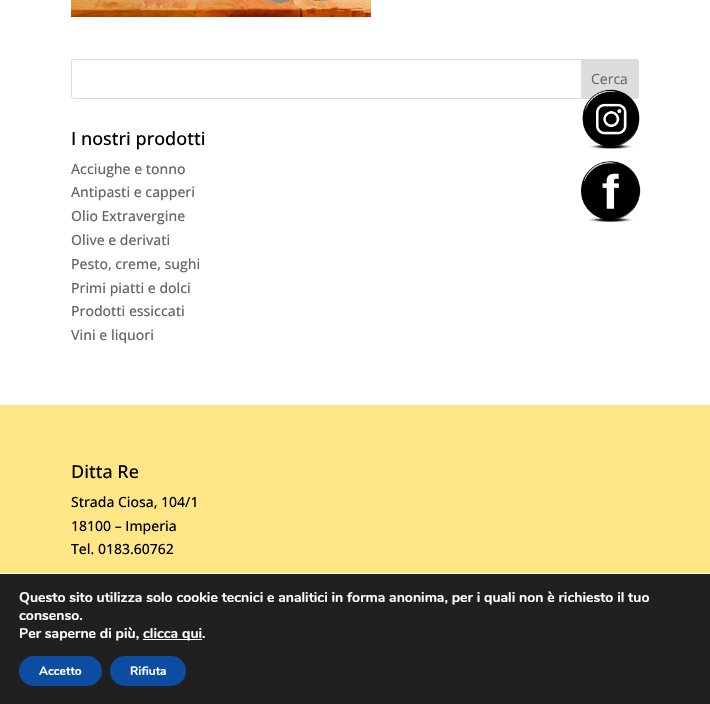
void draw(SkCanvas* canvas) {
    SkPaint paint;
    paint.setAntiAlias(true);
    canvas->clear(0xFFFFFFFF);
    canvas->drawImageRect(SkImages::DeferredFromEncodedData(SkData::MakeFromFileName("img1.png")), SkRect::MakeXYWH(71, 0, 300, 17), SkSamplingOptions());
    paint.setStyle(SkPaint::kStroke_Style);
    paint.setStrokeWidth(1);
    paint.setColor(0xFFDDDDDD);
    canvas->drawRoundRect(SkRect::MakeXYWH(71.5f, 59.5f, 567, 39), 2.5f, 2.5f, paint);
    paint.setStyle(SkPaint::kFill_Style);
    canvas->drawPath(SkPathBuilder().moveTo(581.5f, 59.5f).lineTo(636, 59.5f).cubicTo(637.5f, 59.5f, 638.5f, 60.5f, 638.5f, 62).lineTo(638.5f, 96).cubicTo(638.5f, 97.5f, 637.5f, 98.5f, 636, 98.5f).lineTo(581.5f, 98.5f).close().detach(), paint);
    paint.setStyle(SkPaint::kStroke_Style);
    canvas->drawPath(SkPathBuilder().moveTo(581.5f, 59.5f).lineTo(636, 59.5f).cubicTo(637.5f, 59.5f, 638.5f, 60.5f, 638.5f, 62).lineTo(638.5f, 96).cubicTo(638.5f, 97.5f, 637.5f, 98.5f, 636, 98.5f).lineTo(581.5f, 98.5f).close().detach(), paint);
    SkFont font1(fontMgr->matchFamilyStyle("Open Sans", SkFontStyle::Normal()), 14);
    font1.setSubpixel(true);
    paint.setStyle(SkPaint::kFill_Style);
    paint.setColor(0xFF666666);
    canvas->drawString("Cerca", 591, 84, font1, paint);
    SkFont font2(fontMgr->matchFamilyStyle("Open Sans", SkFontStyle(500, SkFontStyle::kNormal_Width, SkFontStyle::kUpright_Slant)), 18);
    font2.setSubpixel(true);
    paint.setColor(0xFF000000);
    canvas->drawString("I nostri prodotti", 71, 145, font2, paint);
    SkFont font3(fontMgr->matchFamilyStyle("Open Sans", SkFontStyle(500, SkFontStyle::kNormal_Width, SkFontStyle::kUpright_Slant)), 14);
    font3.setSubpixel(true);
    paint.setColor(0xFF666666);
    canvas->drawString("Acciughe e tonno", 71, 174, font3, paint);
    canvas->drawString("Antipasti e capperi", 71, 197, font3, paint);
    canvas->drawString("Olio Extravergine", 71, 221, font3, paint);
    canvas->drawString("Olive e derivati", 71, 245, font3, paint);
    canvas->drawString("Pesto, creme, sughi", 71, 269, font3, paint);
    canvas->drawString("Primi piatti e dolci", 71, 293, font3, paint);
    canvas->drawString("Prodotti essiccati", 71, 316, font3, paint);
    canvas->drawString("Vini e liquori", 71, 340, font3, paint);
    paint.setColor(0xFFFFE787);
    canvas->drawRect(SkRect::MakeXYWH(0, 405, 710, 168), paint);
    paint.setColor(0xFF000000);
    canvas->drawString("Ditta Re", 71, 478, font2, paint);
    canvas->drawString("Strada Ciosa, 104/1", 71, 507, font3, paint);
    canvas->drawString("18100 – Imperia", 71, 531, font3, paint);
    canvas->drawString("Tel. 0183.60762", 71, 554, font3, paint);
    canvas->drawImageRect(SkImages::DeferredFromEncodedData(SkData::MakeFromFileName("img2.png")), SkRect::MakeXYWH(582, 89, 58, 60), SkSamplingOptions());
    canvas->drawImageRect(SkImages::DeferredFromEncodedData(SkData::MakeFromFileName("img3.png")), SkRect::MakeXYWH(581, 161, 60, 62), SkSamplingOptions());
    paint.setColor(0xFF202020);
    canvas->drawRect(SkRect::MakeXYWH(0, 574, 710, 130), paint);
    SkFont font4(fontMgr->matchFamilyStyle("Nunito", SkFontStyle::Bold()), 14);
    font4.setSubpixel(true);
    paint.setColor(0xFFFFFFFF);
    canvas->drawString("Questo sito utilizza solo cookie tecnici e analitici in forma anonima, per i quali non è richiesto il tuo", 19, 602, font4, paint);
    canvas->drawString("consenso.", 19, 620, font4, paint);
    canvas->drawString("Per saperne di più,", 19, 638, font4, paint);
    canvas->drawRect(SkRect::MakeXYWH(143, 639, 59, 1), paint);
    canvas->drawString("clicca qui.", 143, 638, font4, paint);
    paint.setColor(0xFF0C4DA2);
    canvas->drawRoundRect(SkRect::MakeXYWH(19, 656, 83, 30), 15, 15, paint);
    SkFont font5(fontMgr->matchFamilyStyle("Nunito", SkFontStyle::Bold()), 12);
    font5.setSubpixel(true);
    paint.setColor(0xFFFFFFFF);
    canvas->drawString("Accetto", 39, 675, font5, paint);
    paint.setColor(0xFF0C4DA2);
    canvas->drawRoundRect(SkRect::MakeXYWH(110, 656, 76, 30), 15, 15, paint);
    paint.setColor(0xFFFFFFFF);
    canvas->drawString("Rifiuta", 130, 675, font5, paint);
}
